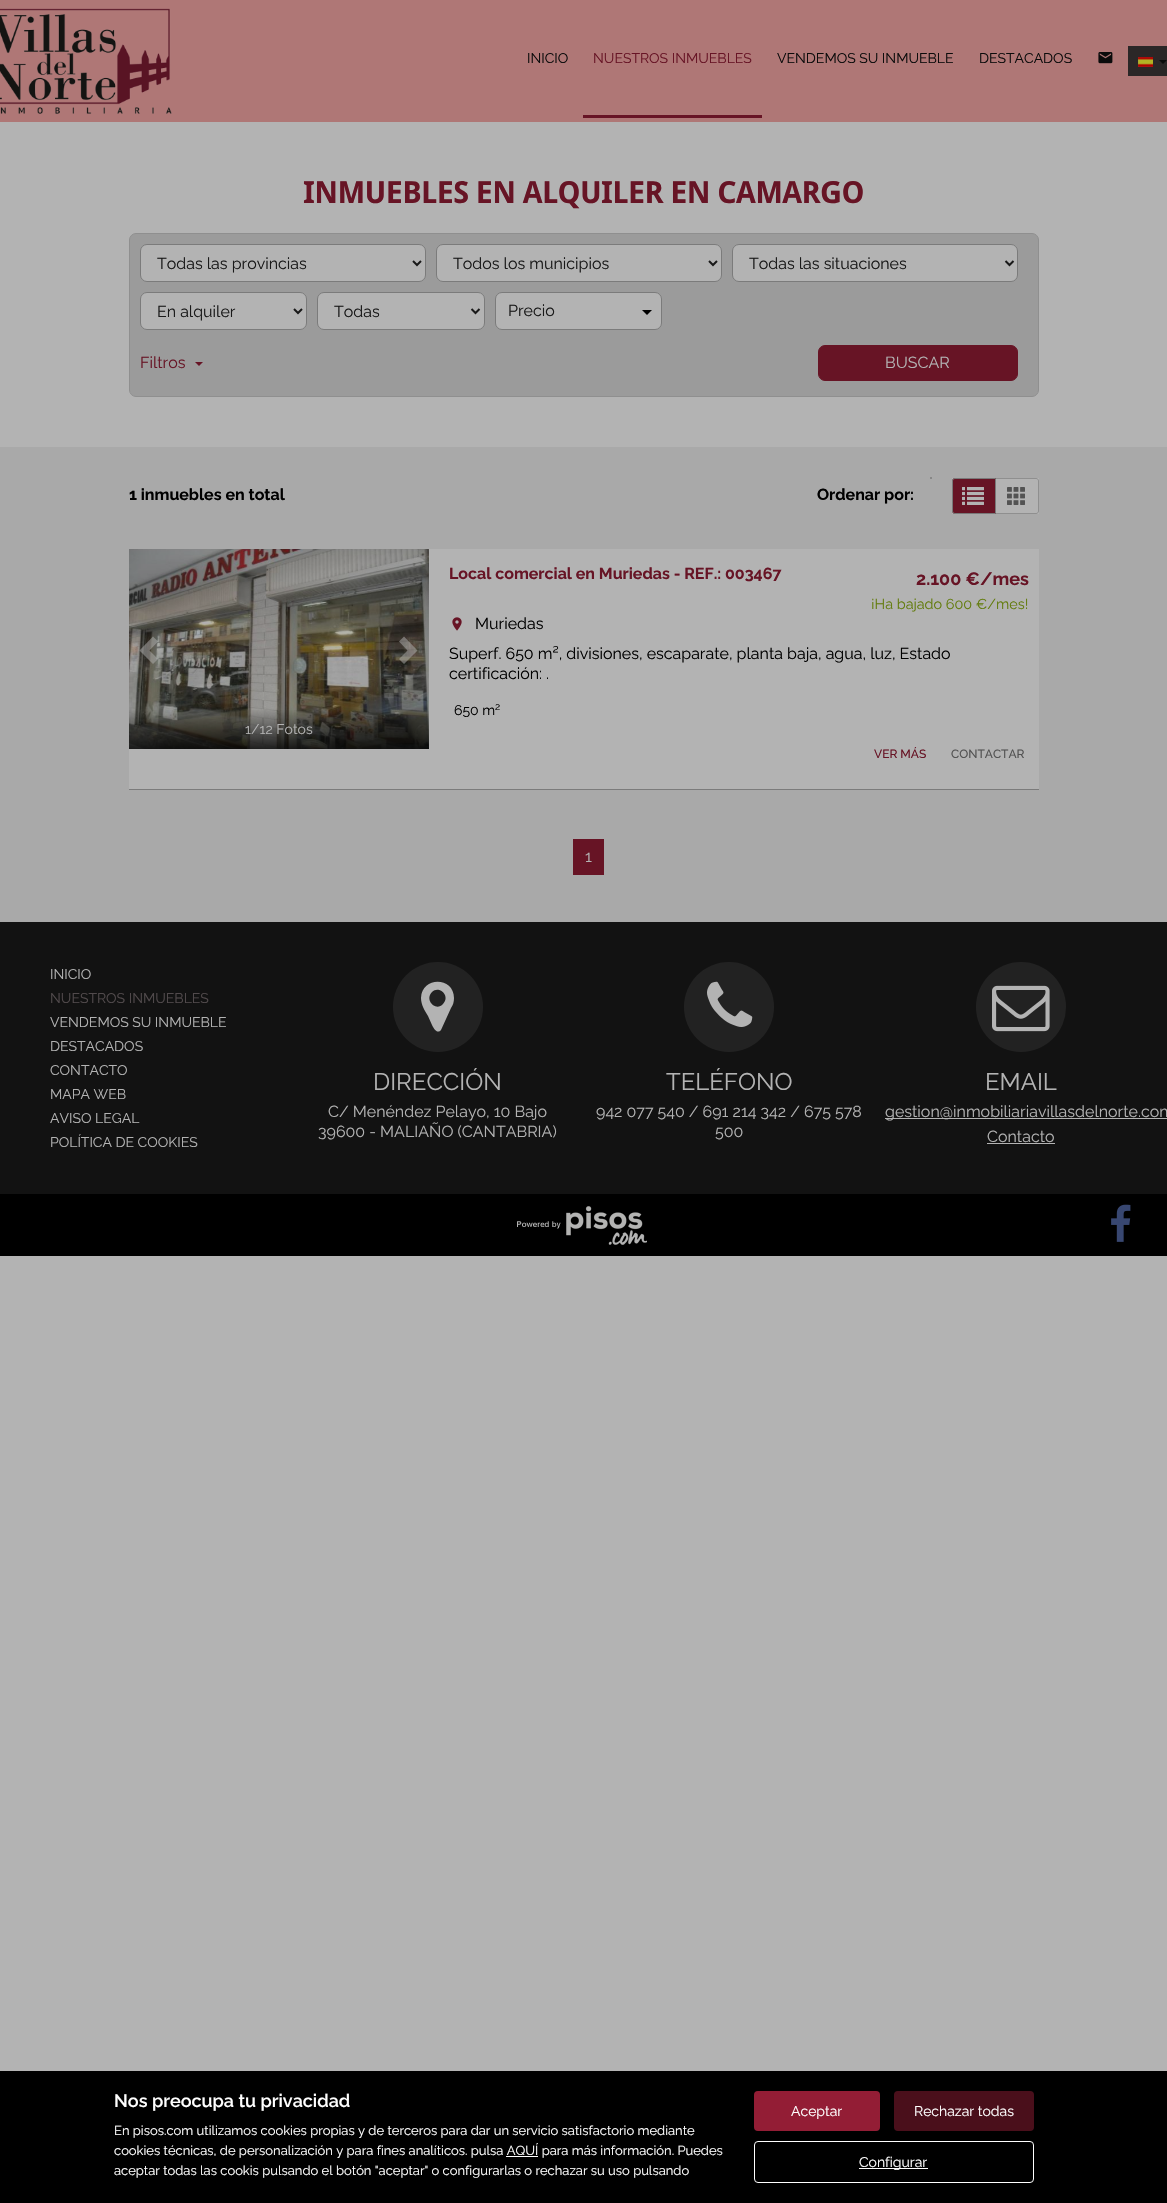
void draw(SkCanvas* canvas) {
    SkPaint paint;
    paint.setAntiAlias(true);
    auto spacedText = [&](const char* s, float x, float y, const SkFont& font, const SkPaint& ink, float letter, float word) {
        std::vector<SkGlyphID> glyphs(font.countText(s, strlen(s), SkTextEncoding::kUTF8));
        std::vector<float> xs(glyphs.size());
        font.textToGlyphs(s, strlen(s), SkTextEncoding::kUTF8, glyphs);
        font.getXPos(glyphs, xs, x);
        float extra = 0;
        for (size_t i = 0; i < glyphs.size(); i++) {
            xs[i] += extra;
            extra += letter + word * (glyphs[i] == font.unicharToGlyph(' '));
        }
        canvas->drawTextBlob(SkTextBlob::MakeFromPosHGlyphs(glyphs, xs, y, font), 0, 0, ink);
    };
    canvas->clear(0xFFB3B3B3);
    paint.setColor(0xFFAF7776);
    canvas->drawRect(SkRect::MakeXYWH(0, 0, 1167, 122), paint);
    canvas->drawImageRect(SkImages::DeferredFromEncodedData(SkData::MakeFromFileName("img1.png")), SkRect::MakeXYWH(0, 8, 172, 106), SkSamplingOptions());
    SkFont font1(fontMgr->matchFamilyStyle("Raleway", SkFontStyle::Normal()), 14);
    font1.setSubpixel(true);
    paint.setColor(0xFF0B0B0B);
    canvas->drawString("INICIO", 527, 63, font1, paint);
    paint.setColor(0xFF671425);
    canvas->drawRect(SkRect::MakeXYWH(583, 115, 179, 3), paint);
    canvas->drawString("NUESTROS INMUEBLES", 593, 63, font1, paint);
    paint.setColor(0xFF0B0B0B);
    canvas->drawString("VENDEMOS SU INMUEBLE", 777, 63, font1, paint);
    canvas->drawString("DESTACADOS", 979, 63, font1, paint);
    canvas->drawImageRect(SkImages::DeferredFromEncodedData(SkData::MakeFromFileName("img2.png")), SkRect::MakeXYWH(1098, 52, 15, 12), SkSamplingOptions());
    paint.setColor(0xFF2B2727);
    canvas->drawRect(SkRect::MakeXYWH(1128, 46, 39, 30), paint);
    canvas->drawImageRect(SkImages::DeferredFromEncodedData(SkData::MakeFromFileName("img3.png")), SkRect::MakeXYWH(1138, 57, 15, 10), SkSamplingOptions());
    paint.setColor(0xFF0B0B0B);
    canvas->drawPath(SkPathBuilder().moveTo(1159, 60).lineTo(1167, 60).lineTo(1163, 64).close().detach(), paint);
    SkFont font2(fontMgr->matchFamilyStyle("Droid Sans", SkFontStyle::Bold()), 30.4f);
    font2.setSubpixel(true);
    paint.setColor(0xFF671425);
    spacedText("INMUEBLES EN ALQUILER EN CAMARGO", 303, 203, font2, paint, -0.6f, 0);
    paint.setColor(0xFF9B9B9B);
    canvas->drawRoundRect(SkRect::MakeXYWH(129.5f, 233.5f, 909, 163), 6.5f, 6.5f, paint);
    paint.setStyle(SkPaint::kStroke_Style);
    paint.setStrokeWidth(1);
    paint.setColor(0xFF8F8F8F);
    canvas->drawRoundRect(SkRect::MakeXYWH(129.5f, 233.5f, 909, 163), 6.5f, 6.5f, paint);
    paint.setStyle(SkPaint::kFill_Style);
    paint.setColor(0xFFB3B3B3);
    canvas->drawRoundRect(SkRect::MakeXYWH(140.5f, 244.5f, 285, 37), 6.5f, 6.5f, paint);
    paint.setStyle(SkPaint::kStroke_Style);
    paint.setColor(0xFF7B7B7B);
    canvas->drawRoundRect(SkRect::MakeXYWH(140.5f, 244.5f, 285, 37), 6.5f, 6.5f, paint);
    paint.setStrokeWidth(2);
    paint.setColor(0xFF191919);
    canvas->drawPath(SkPathBuilder().moveTo(413, 261).lineTo(417, 265).lineTo(421, 261).detach(), paint);
    SkFont font3(fontMgr->matchFamilyStyle("Raleway", SkFontStyle::Normal()), 16);
    font3.setSubpixel(true);
    paint.setStyle(SkPaint::kFill_Style);
    canvas->drawString("Todas las provincias", 157, 269, font3, paint);
    paint.setColor(0xFFB3B3B3);
    canvas->drawRoundRect(SkRect::MakeXYWH(436.5f, 244.5f, 285, 37), 6.5f, 6.5f, paint);
    paint.setStyle(SkPaint::kStroke_Style);
    paint.setStrokeWidth(1);
    paint.setColor(0xFF7B7B7B);
    canvas->drawRoundRect(SkRect::MakeXYWH(436.5f, 244.5f, 285, 37), 6.5f, 6.5f, paint);
    paint.setStrokeWidth(2);
    paint.setColor(0xFF191919);
    canvas->drawPath(SkPathBuilder().moveTo(709, 261).lineTo(713, 265).lineTo(717, 261).detach(), paint);
    paint.setStyle(SkPaint::kFill_Style);
    canvas->drawString("Todos los municipios", 453, 269, font3, paint);
    paint.setColor(0xFFB3B3B3);
    canvas->drawRoundRect(SkRect::MakeXYWH(732.5f, 244.5f, 285, 37), 6.5f, 6.5f, paint);
    paint.setStyle(SkPaint::kStroke_Style);
    paint.setStrokeWidth(1);
    paint.setColor(0xFF7B7B7B);
    canvas->drawRoundRect(SkRect::MakeXYWH(732.5f, 244.5f, 285, 37), 6.5f, 6.5f, paint);
    paint.setStrokeWidth(2);
    paint.setColor(0xFF191919);
    canvas->drawPath(SkPathBuilder().moveTo(1005.5f, 261).lineTo(1009.5f, 265).lineTo(1013.5f, 261).detach(), paint);
    paint.setStyle(SkPaint::kFill_Style);
    canvas->drawString("Todas las situaciones", 749, 269, font3, paint);
    paint.setColor(0xFFB3B3B3);
    canvas->drawRoundRect(SkRect::MakeXYWH(140.5f, 292.5f, 166, 37), 6.5f, 6.5f, paint);
    paint.setStyle(SkPaint::kStroke_Style);
    paint.setStrokeWidth(1);
    paint.setColor(0xFF7B7B7B);
    canvas->drawRoundRect(SkRect::MakeXYWH(140.5f, 292.5f, 166, 37), 6.5f, 6.5f, paint);
    paint.setStrokeWidth(2);
    paint.setColor(0xFF191919);
    canvas->drawPath(SkPathBuilder().moveTo(294, 309).lineTo(298, 313).lineTo(302, 309).detach(), paint);
    paint.setStyle(SkPaint::kFill_Style);
    canvas->drawString("En alquiler", 157, 317, font3, paint);
    paint.setColor(0xFFB3B3B3);
    canvas->drawRoundRect(SkRect::MakeXYWH(317.5f, 292.5f, 167, 37), 6.5f, 6.5f, paint);
    paint.setStyle(SkPaint::kStroke_Style);
    paint.setStrokeWidth(1);
    paint.setColor(0xFF7B7B7B);
    canvas->drawRoundRect(SkRect::MakeXYWH(317.5f, 292.5f, 167, 37), 6.5f, 6.5f, paint);
    paint.setStrokeWidth(2);
    paint.setColor(0xFF191919);
    canvas->drawPath(SkPathBuilder().moveTo(471.5f, 309).lineTo(475.5f, 313).lineTo(479.5f, 309).detach(), paint);
    paint.setStyle(SkPaint::kFill_Style);
    canvas->drawString("Todas", 334, 317, font3, paint);
    paint.setColor(0xFFB3B3B3);
    canvas->drawRoundRect(SkRect::MakeXYWH(495.5f, 292.5f, 166, 37), 6.5f, 6.5f, paint);
    paint.setStyle(SkPaint::kStroke_Style);
    paint.setStrokeWidth(1);
    paint.setColor(0xFF7B7B7B);
    canvas->drawRoundRect(SkRect::MakeXYWH(495.5f, 292.5f, 166, 37), 6.5f, 6.5f, paint);
    paint.setStyle(SkPaint::kFill_Style);
    paint.setColor(0xFF191919);
    canvas->drawString("Precio", 508, 316, font3, paint);
    paint.setColor(0xFF000000);
    canvas->drawPath(SkPathBuilder().moveTo(642, 310).lineTo(652, 310).lineTo(647, 315).close().detach(), paint);
    paint.setColor(0xFF671425);
    canvas->drawString("Filtros", 140, 368, font3, paint);
    canvas->drawPath(SkPathBuilder().moveTo(195, 362).lineTo(203, 362).lineTo(199, 366).close().detach(), paint);
    canvas->drawRoundRect(SkRect::MakeXYWH(818.5f, 345.5f, 199, 35), 6.5f, 6.5f, paint);
    paint.setStyle(SkPaint::kStroke_Style);
    canvas->drawRoundRect(SkRect::MakeXYWH(818.5f, 345.5f, 199, 35), 6.5f, 6.5f, paint);
    paint.setStyle(SkPaint::kFill_Style);
    paint.setColor(0xFFB3B3B3);
    canvas->drawString("BUSCAR", 885, 368, font3, paint);
    paint.setColor(0xFFA9A9A9);
    canvas->drawRect(SkRect::MakeXYWH(0, 447, 1167, 475), paint);
    SkFont font4(fontMgr->matchFamilyStyle("Raleway", SkFontStyle::Bold()), 16);
    font4.setSubpixel(true);
    paint.setColor(0xFF000000);
    canvas->drawString("1 inmuebles en total", 129, 500, font4, paint);
    canvas->drawString("Ordenar por:", 817, 500, font4, paint);
    paint.setColor(0xFF7B7B7B);
    canvas->drawCircle(931, 478, 1, paint);
    paint.setColor(0xFFB3B3B3);
    canvas->drawRect(SkRect::MakeXYWH(952, 478, 87, 36), paint);
    canvas->drawImageRect(SkImages::DeferredFromEncodedData(SkData::MakeFromFileName("img5.png")), SkRect::MakeXYWH(1007, 487, 18, 18), SkSamplingOptions());
    paint.setStyle(SkPaint::kStroke_Style);
    paint.setColor(0xFF8F8F8F);
    canvas->drawPath(SkPathBuilder().moveTo(995.5f, 478.5f).lineTo(1036, 478.5f).cubicTo(1037.5f, 478.5f, 1038.5f, 479.5f, 1038.5f, 481).lineTo(1038.5f, 511).cubicTo(1038.5f, 512.5f, 1037.5f, 513.5f, 1036, 513.5f).lineTo(995.5f, 513.5f).close().detach(), paint);
    paint.setStyle(SkPaint::kFill_Style);
    paint.setColor(0xFF671425);
    canvas->drawPath(SkPathBuilder().moveTo(955, 478).lineTo(996, 478).lineTo(996, 514).lineTo(955, 514).cubicTo(953.5f, 514, 952, 512.5f, 952, 511).lineTo(952, 481).cubicTo(952, 479.5f, 953.5f, 478, 955, 478).close().detach(), paint);
    canvas->drawImageRect(SkImages::DeferredFromEncodedData(SkData::MakeFromFileName("img4.png")), SkRect::MakeXYWH(962, 487, 22, 18), SkSamplingOptions());
    paint.setStyle(SkPaint::kStroke_Style);
    paint.setColor(0xFF797979);
    canvas->drawPath(SkPathBuilder().moveTo(955, 478.5f).lineTo(995.5f, 478.5f).lineTo(995.5f, 513.5f).lineTo(955, 513.5f).cubicTo(953.5f, 513.5f, 952.5f, 512.5f, 952.5f, 511).lineTo(952.5f, 481).cubicTo(952.5f, 479.5f, 953.5f, 478.5f, 955, 478.5f).close().detach(), paint);
    paint.setStyle(SkPaint::kFill_Style);
    paint.setColor(0xFFB3B3B3);
    canvas->drawRect(SkRect::MakeXYWH(129, 549, 910, 240), paint);
    paint.setColor(0xFF7B7B7B);
    canvas->drawRect(SkRect::MakeXYWH(129, 789, 910, 1), paint);
    canvas->drawImageRect(SkImages::DeferredFromEncodedData(SkData::MakeFromFileName("img6.png")), SkRect::MakeXYWH(129, 549, 300, 200), SkSamplingOptions());
    paint.setColor(0x80B3B3B3);
    canvas->drawPath(SkPathBuilder().moveTo(158, 641.5f).lineTo(149.5f, 650.5f).lineTo(158, 659).lineTo(153, 664).lineTo(139.5f, 650.5f).lineTo(153, 636.5f).close().detach(), paint);
    canvas->drawPath(SkPathBuilder().moveTo(417.5f, 650.5f).lineTo(404, 664).lineTo(399, 659).lineTo(407.5f, 650.5f).lineTo(399, 641.5f).lineTo(404, 636.5f).close().detach(), paint);
    {
        const SkColor colors[] = {0x00000000, 0xCC000000};
        const float stops[] = {0, 1};
        const SkPoint ends[] = {{279, 709}, {279, 749}};
        paint.setShader(SkGradientShader::MakeLinear(ends, colors, stops, 2, SkTileMode::kClamp));
        paint.setAlpha(255);
    }
    canvas->drawRect(SkRect::MakeXYWH(129, 710, 300, 39), paint);
    paint.setShader(nullptr);
    paint.setColor(0xFFB3B3B3);
    canvas->drawString("1/12 Fotos", 245, 734, font1, paint);
    paint.setColor(0xFF671425);
    canvas->drawString("Local comercial en Muriedas - REF.: 003467", 449, 579, font4, paint);
    SkFont font5(fontMgr->matchFamilyStyle("Raleway", SkFontStyle::Bold()), 18);
    font5.setSubpixel(true);
    canvas->drawString("2.100 €/mes", 916, 585, font5, paint);
    SkFont font6(fontMgr->matchFamilyStyle("Raleway", SkFontStyle::Normal()), 14.4f);
    font6.setSubpixel(true);
    paint.setColor(0xFF637C0D);
    canvas->drawString("¡Ha bajado 600 €/mes!", 871, 609, font6, paint);
    canvas->drawImageRect(SkImages::DeferredFromEncodedData(SkData::MakeFromFileName("img7.png")), SkRect::MakeXYWH(452, 617, 10, 14), SkSamplingOptions());
    paint.setColor(0xFF000000);
    canvas->drawString("Muriedas", 475, 629, font3, paint);
    canvas->drawString("Superf. 650 m², divisiones, escaparate, planta baja, agua, luz, Estado", 449, 659, font3, paint);
    canvas->drawString("certificación: .", 449, 679, font3, paint);
    canvas->drawString("650 m", 454, 715, font1, paint);
    SkFont font7(fontMgr->matchFamilyStyle("Raleway", SkFontStyle::Normal()), 10);
    font7.setSubpixel(true);
    canvas->drawString("2", 495, 710, font7, paint);
    SkFont font8(fontMgr->matchFamilyStyle("Raleway", SkFontStyle(500, SkFontStyle::kNormal_Width, SkFontStyle::kUpright_Slant)), 12);
    font8.setSubpixel(true);
    paint.setColor(0xFF671425);
    canvas->drawString("VER MÁS", 874, 758, font8, paint);
    paint.setColor(0xFF535353);
    canvas->drawString("CONTACTAR", 951, 758, font8, paint);
    paint.setColor(0xFF671425);
    canvas->drawRect(SkRect::MakeXYWH(573, 839, 31, 36), paint);
    paint.setColor(0xFFB3B3B3);
    canvas->drawString("1", 585, 862, font3, paint);
    paint.setColor(0xFF121212);
    canvas->drawRect(SkRect::MakeXYWH(0, 922, 1167, 272), paint);
    paint.setColor(0xFFB3B3B3);
    canvas->drawString("INICIO", 50, 979, font1, paint);
    paint.setColor(0xFF514A4C);
    canvas->drawString("NUESTROS INMUEBLES", 50, 1003, font1, paint);
    paint.setColor(0xFFB3B3B3);
    canvas->drawString("VENDEMOS SU INMUEBLE", 50, 1027, font1, paint);
    canvas->drawString("DESTACADOS", 50, 1051, font1, paint);
    canvas->drawString("CONTACTO", 50, 1075, font1, paint);
    canvas->drawString("MAPA WEB", 50, 1099, font1, paint);
    canvas->drawString("AVISO LEGAL", 50, 1123, font1, paint);
    canvas->drawString("POLÍTICA DE COOKIES", 50, 1147, font1, paint);
    paint.setColor(0xFF222222);
    canvas->drawCircle(438, 1007, 45, paint);
    paint.setColor(0xFFB3B3B3);
    canvas->drawPath(SkPathBuilder().moveTo(443, 1004).cubicTo(451, 996, 439, 985, 432, 992).cubicTo(424, 1000, 436, 1012, 443, 1004).close().moveTo(454, 998).cubicTo(454, 1002, 453, 1005, 451, 1008).lineTo(441, 1030).cubicTo(437, 1035, 433, 1027, 432, 1025).lineTo(428, 1016).cubicTo(425, 1011, 421, 1005, 421, 998).cubicTo(422, 976, 454, 977, 454, 998).close().detach(), paint);
    SkFont font9(fontMgr->matchFamilyStyle("Raleway", SkFontStyle::Normal()), 24);
    font9.setSubpixel(true);
    canvas->drawString("DIRECCIÓN", 373, 1090, font9, paint);
    canvas->drawString("C/ Menéndez Pelayo, 10 Bajo", 328, 1117, font3, paint);
    canvas->drawString("39600 - MALIAÑO (CANTABRIA)", 318, 1137, font3, paint);
    paint.setColor(0xFF222222);
    canvas->drawCircle(729, 1007, 45, paint);
    canvas->drawImageRect(SkImages::DeferredFromEncodedData(SkData::MakeFromFileName("img8.png")), SkRect::MakeXYWH(707, 981, 46, 46), SkSamplingOptions());
    paint.setColor(0xFFB3B3B3);
    canvas->drawString("TELÉFONO", 666, 1090, font9, paint);
    canvas->drawString("942 077 540 / 691 214 342 / 675 578", 596, 1117, font3, paint);
    canvas->drawString("500", 715, 1137, font3, paint);
    paint.setColor(0xFF222222);
    canvas->drawCircle(1021, 1007, 45, paint);
    canvas->drawImageRect(SkImages::DeferredFromEncodedData(SkData::MakeFromFileName("img9.png")), SkRect::MakeXYWH(992, 985, 58, 47), SkSamplingOptions());
    paint.setColor(0xFFB3B3B3);
    canvas->drawString("EMAIL", 985, 1090, font9, paint);
    canvas->drawRect(SkRect::MakeXYWH(885, 1118, 282, 1), paint);
    canvas->drawString("gestion@inmobiliariavillasdelnorte.com", 885, 1117, font3, paint);
    canvas->drawString("Contacto", 987, 1142, font3, paint);
    canvas->drawRect(SkRect::MakeXYWH(987, 1143, 68, 1), paint);
    paint.setColor(0xFF000000);
    canvas->drawRect(SkRect::MakeXYWH(0, 1194, 1167, 62), paint);
    canvas->drawImageRect(SkImages::DeferredFromEncodedData(SkData::MakeFromFileName("img10.png")), SkRect::MakeXYWH(517, 1206, 130, 39), SkSamplingOptions());
    canvas->drawImageRect(SkImages::DeferredFromEncodedData(SkData::MakeFromFileName("img11.png")), SkRect::MakeXYWH(1111, 1204, 20, 38), SkSamplingOptions());
    canvas->drawRect(SkRect::MakeXYWH(0, 2071, 1167, 132), paint);
    SkFont font10(fontMgr->matchFamilyStyle("Raleway", SkFontStyle(600, SkFontStyle::kNormal_Width, SkFontStyle::kUpright_Slant)), 18);
    font10.setSubpixel(true);
    paint.setColor(0xFFFFFFFF);
    canvas->drawString("Nos preocupa tu privacidad", 114, 2107, font10, paint);
    SkFont font11(fontMgr->matchFamilyStyle("Raleway", SkFontStyle::Normal()), 13);
    font11.setSubpixel(true);
    canvas->drawString("En pisos.com utilizamos cookies propias y de terceros para dar un servicio satisfactorio mediante", 114, 2135, font11, paint);
    canvas->drawString("cookies técnicas, de personalización y para fines analíticos. pulsa AQUÍ para más información. Puedes", 114, 2155, font11, paint);
    canvas->drawRect(SkRect::MakeXYWH(506, 2156, 32, 1), paint);
    canvas->drawString("aceptar todas las cookis pulsando el botón \"aceptar\" o configurarlas o rechazar su uso pulsando", 114, 2175, font11, paint);
    paint.setColor(0xFF931D35);
    canvas->drawRoundRect(SkRect::MakeXYWH(754, 2091, 126, 40), 4, 4, paint);
    paint.setColor(0xFFFFFFFF);
    canvas->drawString("Aceptar", 791, 2116, font1, paint);
    paint.setColor(0xFF4A0F1B);
    canvas->drawRoundRect(SkRect::MakeXYWH(894, 2091, 140, 40), 4, 4, paint);
    paint.setColor(0xFFFFFFFF);
    canvas->drawString("Rechazar todas", 914, 2116, font1, paint);
    paint.setStyle(SkPaint::kStroke_Style);
    canvas->drawRoundRect(SkRect::MakeXYWH(754.5f, 2141.5f, 279, 41), 3.5f, 3.5f, paint);
    paint.setStyle(SkPaint::kFill_Style);
    canvas->drawRect(SkRect::MakeXYWH(859, 2168, 69, 1), paint);
    canvas->drawString("Configurar", 859, 2167, font1, paint);
}
